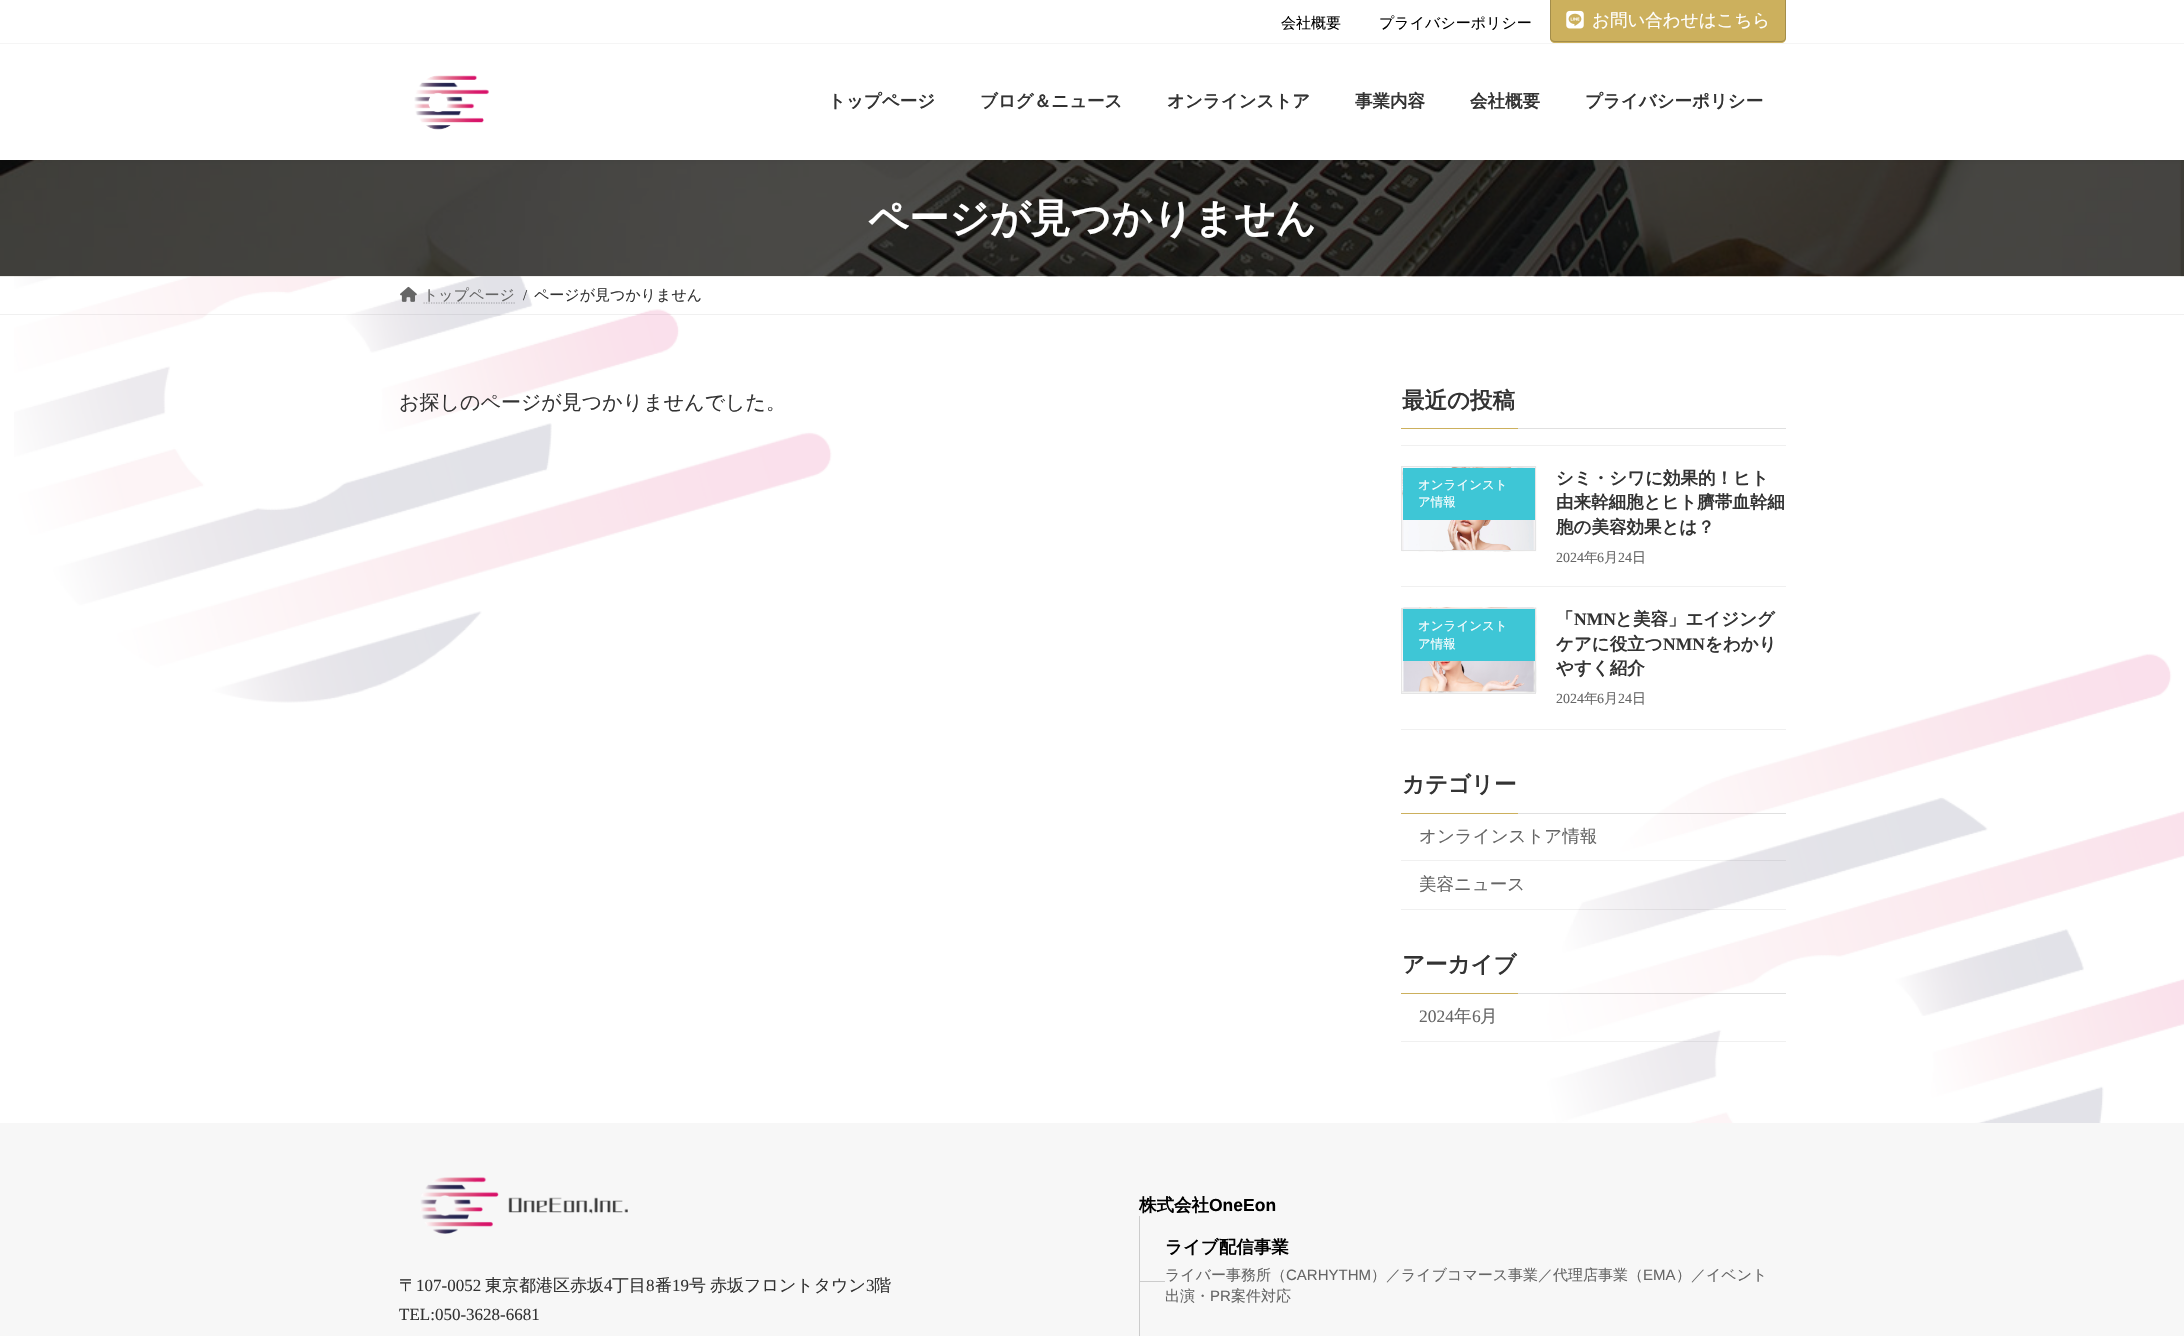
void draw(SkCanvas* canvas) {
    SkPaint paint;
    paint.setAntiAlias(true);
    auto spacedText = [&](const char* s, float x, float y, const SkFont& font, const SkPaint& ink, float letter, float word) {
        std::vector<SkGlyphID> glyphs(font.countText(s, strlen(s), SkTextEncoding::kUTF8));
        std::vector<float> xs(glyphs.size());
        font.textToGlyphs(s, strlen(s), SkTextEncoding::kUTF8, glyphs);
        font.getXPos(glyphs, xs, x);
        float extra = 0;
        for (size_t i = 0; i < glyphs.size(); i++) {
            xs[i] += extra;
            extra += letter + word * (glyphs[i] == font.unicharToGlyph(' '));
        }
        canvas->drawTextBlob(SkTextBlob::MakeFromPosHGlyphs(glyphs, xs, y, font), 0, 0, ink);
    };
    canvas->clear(0xFFFFFFFF);
    canvas->drawImageRect(SkImages::DeferredFromEncodedData(SkData::MakeFromFileName("img1.png")), SkRect::MakeXYWH(14, 276, 2170, 847), SkSamplingOptions());
    paint.setColor(0x0F000000);
    canvas->drawRect(SkRect::MakeXYWH(0, 276, 2184, 1), paint);
    canvas->drawImageRect(SkImages::DeferredFromEncodedData(SkData::MakeFromFileName("img4.png")), SkRect::MakeXYWH(0, 160, 2184, 117), SkSamplingOptions());
    paint.setColor(0x0D000000);
    paint.setMaskFilter(SkMaskFilter::MakeBlur(kNormal_SkBlurStyle, 2));
    canvas->drawRect(SkRect::MakeXYWH(0, -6, 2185, 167), paint);
    paint.setMaskFilter(nullptr);
    paint.setColor(0xFFFFFFFF);
    canvas->drawRect(SkRect::MakeXYWH(0, 0, 2184, 160), paint);
    paint.setColor(0xFFF5F5F5);
    canvas->drawRect(SkRect::MakeXYWH(0, 43, 2184, 1), paint);
    SkFont font1(fontMgr->matchFamilyStyle("WenQuanYi Zen Hei", SkFontStyle(500, SkFontStyle::kNormal_Width, SkFontStyle::kUpright_Slant)), 15);
    font1.setSubpixel(true);
    paint.setColor(0xFF000000);
    canvas->drawString("会社概要", 1281, 28, font1, paint);
    canvas->drawString("プライバシーポリシー", 1379, 28, font1, paint);
    paint.setColor(0xFFCCB05D);
    canvas->drawPath(SkPathBuilder().moveTo(1550, 0).lineTo(1786, 0).lineTo(1786, 38).cubicTo(1786, 41, 1784, 43, 1781, 43).lineTo(1555, 43).cubicTo(1552, 43, 1550, 41, 1550, 38).close().detach(), paint);
    paint.setColor(0xFFA38D4A);
    canvas->drawPath(SkPathBuilder(SkPathFillType::kEvenOdd).moveTo(1550, 0).lineTo(1786, 0).lineTo(1786, 38).cubicTo(1786, 40, 1784, 42, 1781, 42).lineTo(1555, 42).cubicTo(1552, 42, 1550, 40, 1550, 38).close().moveTo(1551, 0).lineTo(1785, 0).lineTo(1785, 38).cubicTo(1785, 40, 1783, 41, 1781, 41).lineTo(1555, 41).cubicTo(1553, 41, 1551, 40, 1551, 38).close().detach(), paint);
    canvas->drawImageRect(SkImages::DeferredFromEncodedData(SkData::MakeFromFileName("img2.png")), SkRect::MakeXYWH(1566, 10, 18, 19), SkSamplingOptions());
    SkFont font2(fontMgr->matchFamilyStyle("WenQuanYi Zen Hei", SkFontStyle(500, SkFontStyle::kNormal_Width, SkFontStyle::kUpright_Slant)), 17.5f);
    font2.setSubpixel(true);
    paint.setColor(0xFFFFFFFF);
    canvas->drawString("お問い合わせはこちら", 1592, 26, font2, paint);
    canvas->drawImageRect(SkImages::DeferredFromEncodedData(SkData::MakeFromFileName("img3.png")), SkRect::MakeXYWH(414, 75, 75, 55), SkSamplingOptions());
    SkFont font3(fontMgr->matchFamilyStyle("WenQuanYi Zen Hei", SkFontStyle::Bold()), 17.5f);
    font3.setSubpixel(true);
    paint.setColor(0xFF333333);
    canvas->drawString("トップページ", 828, 107, font3, paint);
    canvas->drawString("ブログ＆ニュース", 980, 107, font3, paint);
    canvas->drawString("オンラインストア", 1167, 107, font3, paint);
    canvas->drawString("事業内容", 1355, 107, font3, paint);
    canvas->drawString("会社概要", 1470, 107, font3, paint);
    canvas->drawString("プライバシーポリシー", 1585, 107, font3, paint);
    SkFont font4(fontMgr->matchFamilyStyle("WenQuanYi Zen Hei", SkFontStyle::Bold()), 40);
    font4.setSubpixel(true);
    paint.setColor(0xFFFFFFFF);
    canvas->drawString("ページが見つかりません", 868, 232, font4, paint);
    paint.setColor(0x0F000000);
    canvas->drawRect(SkRect::MakeXYWH(0, 314, 2184, 1), paint);
    canvas->drawImageRect(SkImages::DeferredFromEncodedData(SkData::MakeFromFileName("img5.png")), SkRect::MakeXYWH(400, 286, 17, 16), SkSamplingOptions());
    paint.setColor(0xFF666666);
    canvas->drawString("トップページ", 423, 300, font1, paint);
    paint.setStyle(SkPaint::kStroke_Style);
    paint.setStrokeWidth(1.2f);
    paint.setColor(0x4D000000);
    paint.setPathEffect(SkDashPathEffect::Make({{1.25f, 1.25f}}, 0));
    canvas->drawPath(SkPathBuilder().moveTo(423.5f, 303).lineTo(515.5f, 303).detach(), paint);
    paint.setPathEffect(nullptr);
    SkFont font5(fontMgr->matchFamilyStyle("Liberation Serif", SkFontStyle::Normal()), 15);
    font5.setSubpixel(true);
    paint.setStyle(SkPaint::kFill_Style);
    paint.setColor(0xFF333333);
    canvas->drawString("/", 523, 300, font5, paint);
    canvas->drawString("ページが見つかりません", 534, 300, font1, paint);
    SkFont font6(fontMgr->matchFamilyStyle("WenQuanYi Zen Hei", SkFontStyle(500, SkFontStyle::kNormal_Width, SkFontStyle::kUpright_Slant)), 20);
    font6.setSubpixel(true);
    canvas->drawString("お探しのページが見つかりませんでした。", 399, 409, font6, paint);
    paint.setColor(0xFFE0E0E0);
    canvas->drawRect(SkRect::MakeXYWH(1518, 428, 268, 1), paint);
    SkFont font7(fontMgr->matchFamilyStyle("WenQuanYi Zen Hei", SkFontStyle::Bold()), 22.5f);
    font7.setSubpixel(true);
    paint.setColor(0xFF333333);
    canvas->drawString("最近の投稿", 1402, 408, font7, paint);
    paint.setColor(0xFFCCB05D);
    canvas->drawRect(SkRect::MakeXYWH(1401, 428, 117, 1), paint);
    paint.setColor(0xFFF0F0F0);
    canvas->drawRect(SkRect::MakeXYWH(1401, 445, 385, 1), paint);
    canvas->drawRect(SkRect::MakeXYWH(1401, 586, 385, 1), paint);
    canvas->drawImageRect(SkImages::DeferredFromEncodedData(SkData::MakeFromFileName("img6.png")), SkRect::MakeXYWH(1401, 466, 136, 86), SkSamplingOptions());
    paint.setStyle(SkPaint::kStroke_Style);
    paint.setStrokeWidth(1);
    paint.setColor(0xFFE5E5E5);
    canvas->drawRect(SkRect::MakeXYWH(1401.5f, 466.5f, 134, 84), paint);
    paint.setStyle(SkPaint::kFill_Style);
    paint.setColor(0xFF3EC6D6);
    canvas->drawRect(SkRect::MakeXYWH(1403, 468, 132, 52), paint);
    SkFont font8(fontMgr->matchFamilyStyle("WenQuanYi Zen Hei", SkFontStyle(500, SkFontStyle::kNormal_Width, SkFontStyle::kUpright_Slant)), 12.5f);
    font8.setSubpixel(true);
    paint.setColor(0xFFFFFFFF);
    canvas->drawString("オンラインスト", 1418, 489, font8, paint);
    canvas->drawString("ア情報", 1418, 506, font8, paint);
    paint.setColor(0xFF333333);
    canvas->drawString("シミ・シワに効果的！ヒト", 1556, 484, font3, paint);
    canvas->drawString("由来幹細胞とヒト臍帯血幹細", 1556, 508, font3, paint);
    canvas->drawString("胞の美容効果とは？", 1556, 533, font3, paint);
    SkFont font9(fontMgr->matchFamilyStyle("Liberation Serif", SkFontStyle::Normal()), 14);
    font9.setSubpixel(true);
    paint.setColor(0xFF666666);
    canvas->drawString("2024", 1556, 562, font9, paint);
    SkFont font10(fontMgr->matchFamilyStyle("WenQuanYi Zen Hei", SkFontStyle(500, SkFontStyle::kNormal_Width, SkFontStyle::kUpright_Slant)), 14);
    font10.setSubpixel(true);
    canvas->drawString("年", 1584, 562, font10, paint);
    canvas->drawString("6", 1597, 562, font9, paint);
    canvas->drawString("月", 1604, 562, font10, paint);
    canvas->drawString("24", 1618, 562, font9, paint);
    canvas->drawString("日", 1632, 562, font10, paint);
    paint.setColor(0xFFF0F0F0);
    canvas->drawRect(SkRect::MakeXYWH(1401, 729, 385, 1), paint);
    canvas->drawImageRect(SkImages::DeferredFromEncodedData(SkData::MakeFromFileName("img7.png")), SkRect::MakeXYWH(1401, 607, 136, 86), SkSamplingOptions());
    paint.setStyle(SkPaint::kStroke_Style);
    paint.setColor(0xFFE5E5E5);
    canvas->drawRect(SkRect::MakeXYWH(1401.5f, 608.5f, 134, 85), paint);
    paint.setStyle(SkPaint::kFill_Style);
    paint.setColor(0xFF3EC6D6);
    canvas->drawRect(SkRect::MakeXYWH(1403, 609, 132, 52), paint);
    paint.setColor(0xFFFFFFFF);
    canvas->drawString("オンラインスト", 1418, 630, font8, paint);
    canvas->drawString("ア情報", 1418, 648, font8, paint);
    paint.setColor(0xFF333333);
    canvas->drawString("「", 1556, 625, font3, paint);
    SkFont font11(fontMgr->matchFamilyStyle("Liberation Serif", SkFontStyle::Bold()), 17.5f);
    font11.setSubpixel(true);
    canvas->drawString("NMN", 1574, 625, font11, paint);
    canvas->drawString("と美容」エイジング", 1615, 625, font3, paint);
    canvas->drawString("ケアに役立つ", 1556, 650, font3, paint);
    canvas->drawString("NMN", 1663, 650, font11, paint);
    canvas->drawString("をわかり", 1705, 650, font3, paint);
    canvas->drawString("やすく紹介", 1556, 674, font3, paint);
    paint.setColor(0xFF666666);
    canvas->drawString("2024", 1556, 703, font9, paint);
    canvas->drawString("年", 1584, 703, font10, paint);
    canvas->drawString("6", 1597, 703, font9, paint);
    canvas->drawString("月", 1604, 703, font10, paint);
    canvas->drawString("24", 1618, 703, font9, paint);
    canvas->drawString("日", 1632, 703, font10, paint);
    paint.setColor(0x1F000000);
    canvas->drawRect(SkRect::MakeXYWH(1518, 813, 268, 1), paint);
    paint.setColor(0xFF333333);
    canvas->drawString("カテゴリー", 1402, 792, font7, paint);
    paint.setColor(0xFFCCB05D);
    canvas->drawRect(SkRect::MakeXYWH(1401, 813, 117, 1), paint);
    paint.setColor(0x0F000000);
    canvas->drawRect(SkRect::MakeXYWH(1401, 860, 385, 1), paint);
    paint.setColor(0xFF666666);
    canvas->drawString("オンラインストア情報", 1419, 842, font2, paint);
    paint.setColor(0x0F000000);
    canvas->drawRect(SkRect::MakeXYWH(1401, 909, 385, 1), paint);
    paint.setColor(0xFF666666);
    canvas->drawString("美容ニュース", 1419, 890, font2, paint);
    paint.setColor(0x1F000000);
    canvas->drawRect(SkRect::MakeXYWH(1518, 993, 268, 1), paint);
    paint.setColor(0xFF333333);
    canvas->drawString("アーカイブ", 1402, 972, font7, paint);
    paint.setColor(0xFFCCB05D);
    canvas->drawRect(SkRect::MakeXYWH(1401, 993, 117, 1), paint);
    paint.setColor(0x0F000000);
    canvas->drawRect(SkRect::MakeXYWH(1401, 1041, 385, 1), paint);
    SkFont font12(fontMgr->matchFamilyStyle("Liberation Serif", SkFontStyle::Normal()), 17.5f);
    font12.setSubpixel(true);
    paint.setColor(0xFF666666);
    canvas->drawString("2024", 1419, 1022, font12, paint);
    canvas->drawString("年", 1454, 1022, font2, paint);
    canvas->drawString("6", 1472, 1022, font12, paint);
    canvas->drawString("月", 1480, 1022, font2, paint);
    paint.setColor(0xFFF7F7F7);
    canvas->drawRect(SkRect::MakeXYWH(0, 1123, 2184, 213), paint);
    canvas->drawImageRect(SkImages::DeferredFromEncodedData(SkData::MakeFromFileName("img8.png")), SkRect::MakeXYWH(420, 1177, 208, 57), SkSamplingOptions());
    SkFont font13(fontMgr->matchFamilyStyle("WenQuanYi Zen Hei", SkFontStyle(500, SkFontStyle::kNormal_Width, SkFontStyle::kUpright_Slant)), 17);
    font13.setSubpixel(true);
    paint.setColor(0xFF333333);
    canvas->drawString("〒", 399, 1291, font13, paint);
    SkFont font14(fontMgr->matchFamilyStyle("Liberation Serif", SkFontStyle::Normal()), 17);
    font14.setSubpixel(true);
    canvas->drawString("107-0052", 416, 1291, font14, paint);
    canvas->drawString("東京都港区赤坂", 485, 1291, font13, paint);
    canvas->drawString("4", 604, 1291, font14, paint);
    canvas->drawString("丁目", 612, 1291, font13, paint);
    canvas->drawString("8", 646, 1291, font14, paint);
    canvas->drawString("番", 655, 1291, font13, paint);
    canvas->drawString("19", 672, 1291, font14, paint);
    spacedText("号 赤坂フロントタウン", 689, 1291, font13, paint, 0, -1);
    canvas->drawString("3", 866, 1291, font14, paint);
    canvas->drawString("階", 874, 1291, font13, paint);
    canvas->drawString("TEL:050-3628-6681", 399, 1320, font14, paint);
    paint.setColor(0xFF000000);
    canvas->drawString("株式会社", 1139, 1211, font3, paint);
    SkFont font15(fontMgr->matchFamilyStyle("Liberation Sans", SkFontStyle::Bold()), 17.5f);
    font15.setSubpixel(true);
    canvas->drawString("OneEon", 1209, 1211, font15, paint);
    paint.setColor(0xFFCCCCCC);
    canvas->drawRect(SkRect::MakeXYWH(1139, 1216, 1, 120), paint);
    canvas->drawRect(SkRect::MakeXYWH(1140, 1281, 25, 1), paint);
    paint.setColor(0xFF000000);
    canvas->drawString("ライブ配信事業", 1165, 1253, font3, paint);
    paint.setColor(0xFF666666);
    canvas->drawString("ライバー事務所（", 1165, 1280, font1, paint);
    SkFont font16(fontMgr->matchFamilyStyle("Liberation Sans", SkFontStyle::Normal()), 15);
    font16.setSubpixel(true);
    canvas->drawString("CARHYTHM", 1286, 1280, font16, paint);
    canvas->drawString("）／ライブコマース事業／代理店事業（", 1371, 1280, font1, paint);
    canvas->drawString("EMA", 1643, 1280, font16, paint);
    canvas->drawString("）／イベント", 1676, 1280, font1, paint);
    canvas->drawString("出演・", 1165, 1301, font1, paint);
    canvas->drawString("PR", 1210, 1301, font16, paint);
    canvas->drawString("案件対応", 1231, 1301, font1, paint);
}
